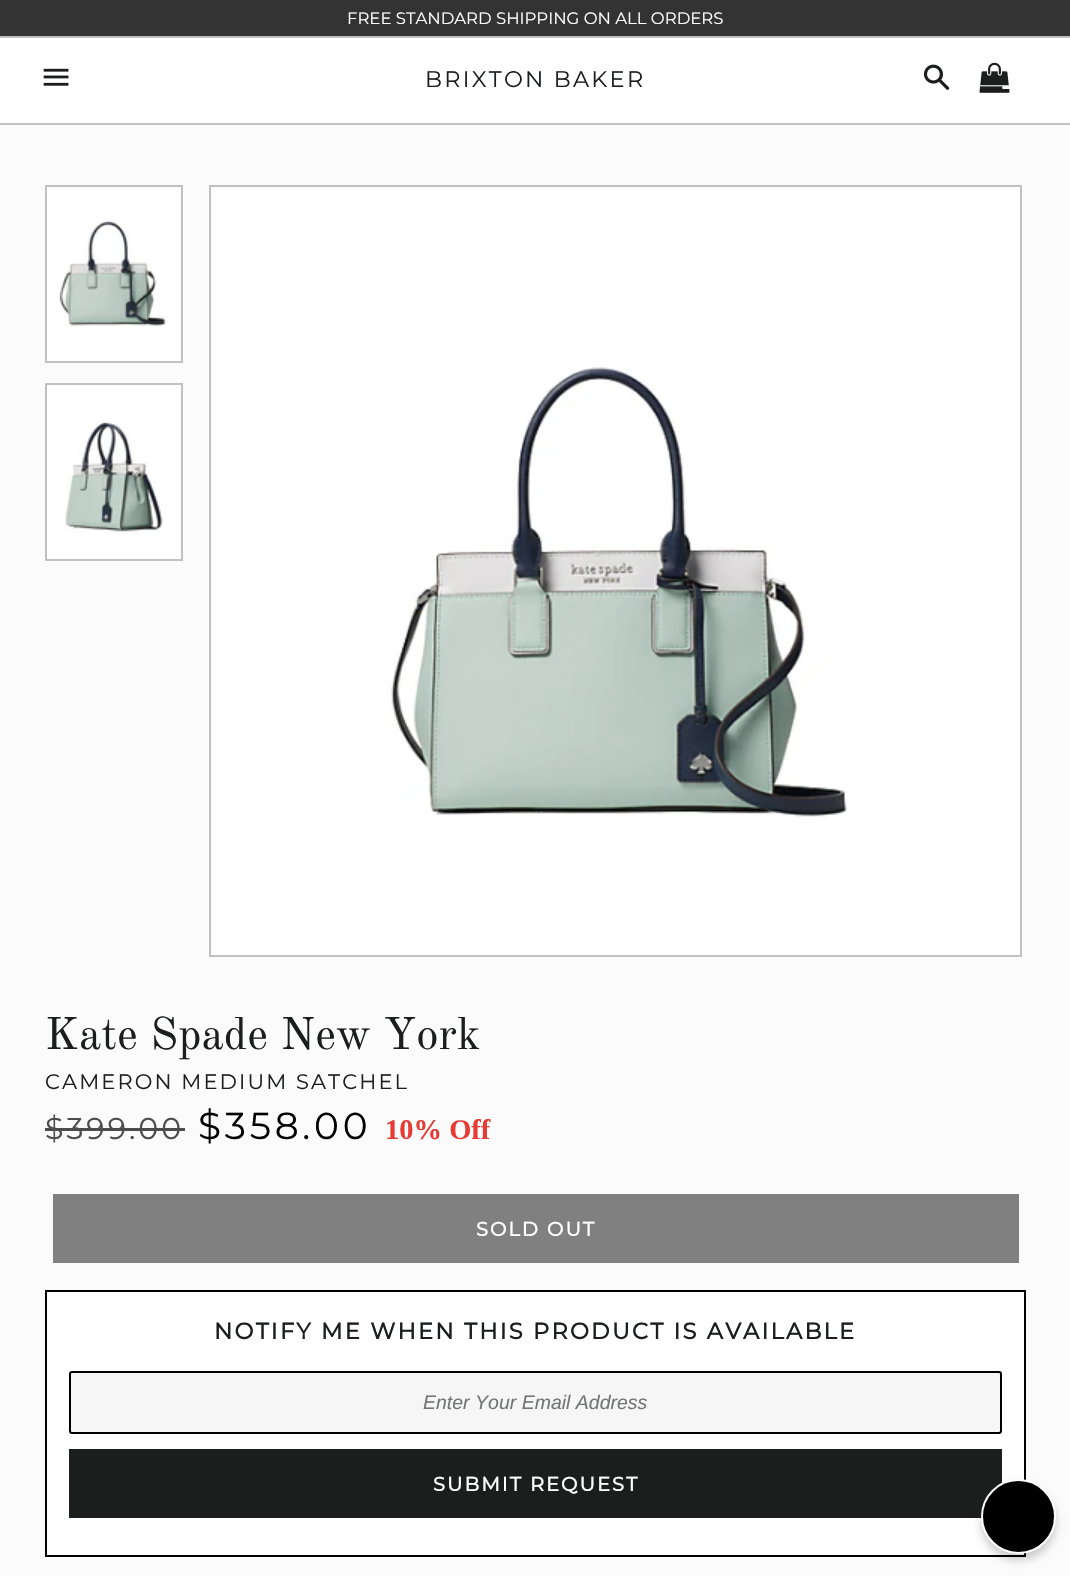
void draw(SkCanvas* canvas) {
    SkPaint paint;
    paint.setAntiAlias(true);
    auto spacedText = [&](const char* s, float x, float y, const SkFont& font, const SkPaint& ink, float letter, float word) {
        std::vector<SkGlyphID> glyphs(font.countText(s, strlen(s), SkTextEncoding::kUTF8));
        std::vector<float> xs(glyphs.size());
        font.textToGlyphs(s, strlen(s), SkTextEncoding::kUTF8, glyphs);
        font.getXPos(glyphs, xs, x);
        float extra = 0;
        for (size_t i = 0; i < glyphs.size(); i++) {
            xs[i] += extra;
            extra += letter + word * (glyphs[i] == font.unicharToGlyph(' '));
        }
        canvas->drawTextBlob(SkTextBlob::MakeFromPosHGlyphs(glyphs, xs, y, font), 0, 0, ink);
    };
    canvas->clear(0xFFFFFFFF);
    paint.setColor(0xFF333333);
    canvas->drawRect(SkRect::MakeXYWH(0, 0, 1070, 36), paint);
    paint.setColor(0xFFC1C1C1);
    canvas->drawRect(SkRect::MakeXYWH(0, 36, 1070, 2), paint);
    SkFont font1(fontMgr->matchFamilyStyle("Montserrat", SkFontStyle(100, SkFontStyle::kNormal_Width, SkFontStyle::kUpright_Slant)), 16.5f);
    font1.setSubpixel(true);
    paint.setColor(0xFFFFFFFF);
    canvas->drawString("FREE STANDARD SHIPPING ON ALL ORDERS", 347, 24, font1, paint);
    canvas->drawImageRect(SkImages::DeferredFromEncodedData(SkData::MakeFromFileName("img1.png")), SkRect::MakeXYWH(43, 68, 26, 18), SkSamplingOptions());
    SkFont font2(fontMgr->matchFamilyStyle("Montserrat", SkFontStyle(100, SkFontStyle::kNormal_Width, SkFontStyle::kUpright_Slant)), 22.5f);
    font2.setSubpixel(true);
    paint.setColor(0xFF1C1D1D);
    spacedText("BRIXTON BAKER", 425, 87, font2, paint, 2.25f, 0);
    canvas->drawImageRect(SkImages::DeferredFromEncodedData(SkData::MakeFromFileName("img2.png")), SkRect::MakeXYWH(923, 64, 27, 26), SkSamplingOptions());
    canvas->drawImageRect(SkImages::DeferredFromEncodedData(SkData::MakeFromFileName("img3.png")), SkRect::MakeXYWH(979, 62, 31, 31), SkSamplingOptions());
    paint.setColor(0xFFFFFFFF);
    canvas->drawRoundRect(SkRect::MakeXYWH(1002, 86, 27, 3), 1.5f, 1.5f, paint);
    paint.setColor(0xFFFBFBFB);
    canvas->drawRect(SkRect::MakeXYWH(0, 125, 1070, 1451), paint);
    paint.setColor(0xFFC1C1C1);
    canvas->drawRect(SkRect::MakeXYWH(0, 123, 1070, 2), paint);
    paint.setColor(0xFFFFFFFF);
    canvas->drawRect(SkRect::MakeXYWH(46, 186, 136, 176), paint);
    paint.setStyle(SkPaint::kStroke_Style);
    paint.setStrokeWidth(2);
    paint.setColor(0xFFC1C1C1);
    canvas->drawRect(SkRect::MakeXYWH(46, 186, 136, 176), paint);
    canvas->drawImageRect(SkImages::DeferredFromEncodedData(SkData::MakeFromFileName("img4.png")), SkRect::MakeXYWH(59, 218, 109, 108), SkSamplingOptions());
    paint.setStyle(SkPaint::kFill_Style);
    paint.setColor(0xFFFFFFFF);
    canvas->drawRect(SkRect::MakeXYWH(46, 384, 136, 176), paint);
    paint.setStyle(SkPaint::kStroke_Style);
    paint.setColor(0xFFC1C1C1);
    canvas->drawRect(SkRect::MakeXYWH(46, 384, 136, 176), paint);
    canvas->drawImageRect(SkImages::DeferredFromEncodedData(SkData::MakeFromFileName("img5.png")), SkRect::MakeXYWH(64, 421, 99, 113), SkSamplingOptions());
    paint.setStyle(SkPaint::kFill_Style);
    paint.setColor(0xFFFFFFFF);
    canvas->drawRect(SkRect::MakeXYWH(210, 186, 811, 770), paint);
    paint.setStyle(SkPaint::kStroke_Style);
    paint.setColor(0xFFC1C1C1);
    canvas->drawRect(SkRect::MakeXYWH(210, 186, 811, 770), paint);
    canvas->drawImageRect(SkImages::DeferredFromEncodedData(SkData::MakeFromFileName("img6.png")), SkRect::MakeXYWH(388, 367, 462, 452), SkSamplingOptions());
    SkFont font3(fontMgr->matchFamilyStyle("Old Standard TT", SkFontStyle::Normal()), 45);
    font3.setSubpixel(true);
    paint.setStyle(SkPaint::kFill_Style);
    paint.setColor(0xFF1C1D1D);
    canvas->drawString("Kate Spade New York", 45, 1049, font3, paint);
    SkFont font4(fontMgr->matchFamilyStyle("Montserrat", SkFontStyle(100, SkFontStyle::kNormal_Width, SkFontStyle::kUpright_Slant)), 21);
    font4.setSubpixel(true);
    spacedText("CAMERON MEDIUM SATCHEL", 45, 1089, font4, paint, 2.1f, 0);
    SkFont font5(fontMgr->matchFamilyStyle("Montserrat", SkFontStyle(100, SkFontStyle::kNormal_Width, SkFontStyle::kUpright_Slant)), 30);
    font5.setSubpixel(true);
    paint.setColor(0xFF4C4C4C);
    spacedText("$399.00", 45, 1139, font5, paint, 3, 0);
    canvas->drawRect(SkRect::MakeXYWH(45, 1128, 140, 3), paint);
    SkFont font6(fontMgr->matchFamilyStyle("Montserrat", SkFontStyle(100, SkFontStyle::kNormal_Width, SkFontStyle::kUpright_Slant)), 37.5f);
    font6.setSubpixel(true);
    paint.setColor(0xFF000000);
    spacedText("$358.00", 198, 1139, font6, paint, 3.75f, 0);
    SkFont font7(fontMgr->matchFamilyStyle("Liberation Serif", SkFontStyle::Bold()), 28.5f);
    font7.setSubpixel(true);
    paint.setColor(0xFFE63B34);
    canvas->drawString("10% Off", 385, 1139, font7, paint);
    paint.setColor(0xFF808080);
    canvas->drawRect(SkRect::MakeXYWH(53, 1194, 966, 69), paint);
    SkFont font8(fontMgr->matchFamilyStyle("Montserrat", SkFontStyle::Bold()), 19.5f);
    font8.setSubpixel(true);
    paint.setColor(0xFFFFFFFF);
    spacedText("SOLD OUT", 476, 1236, font8, paint, 2, 0);
    canvas->drawRect(SkRect::MakeXYWH(46, 1291, 979, 265), paint);
    paint.setStyle(SkPaint::kStroke_Style);
    paint.setColor(0xFF000000);
    canvas->drawRect(SkRect::MakeXYWH(46, 1291, 979, 265), paint);
    SkFont font9(fontMgr->matchFamilyStyle("Montserrat", SkFontStyle::Bold()), 22.5f);
    font9.setSubpixel(true);
    paint.setStyle(SkPaint::kFill_Style);
    paint.setColor(0xFF1C1D1D);
    spacedText("NOTIFY ME WHEN THIS PRODUCT IS AVAILABLE", 214, 1339, font9, paint, 2.25f, 0);
    paint.setColor(0xFFF6F6F6);
    canvas->drawRoundRect(SkRect::MakeXYWH(70, 1372, 931, 61), 2, 2, paint);
    paint.setStyle(SkPaint::kStroke_Style);
    paint.setColor(0xFF000000);
    canvas->drawRoundRect(SkRect::MakeXYWH(70, 1372, 931, 61), 2, 2, paint);
    SkFont font10(fontMgr->matchFamilyStyle("Liberation Sans", SkFontStyle::Italic()), 19.5f);
    font10.setSubpixel(true);
    paint.setStyle(SkPaint::kFill_Style);
    paint.setColor(0xFF737474);
    canvas->drawString("Enter Your Email Address", 423, 1409, font10, paint);
    paint.setColor(0xFF1C1D1D);
    canvas->drawRect(SkRect::MakeXYWH(69, 1449, 933, 69), paint);
    paint.setColor(0xFFFFFFFF);
    spacedText("SUBMIT REQUEST", 433, 1491, font8, paint, 2, 0);
    paint.setColor(0x33000000);
    paint.setMaskFilter(SkMaskFilter::MakeBlur(kNormal_SkBlurStyle, 4.5f));
    canvas->drawRoundRect(SkRect::MakeXYWH(981, 1485, 75, 75), 37.5f, 37.5f, paint);
    paint.setMaskFilter(nullptr);
    paint.setColor(0xFF000000);
    canvas->drawCircle(1018.5f, 1516.5f, 36.5f, paint);
    paint.setStyle(SkPaint::kStroke_Style);
    paint.setColor(0xFFFFFFFF);
    canvas->drawCircle(1018.5f, 1516.5f, 36.5f, paint);
}
